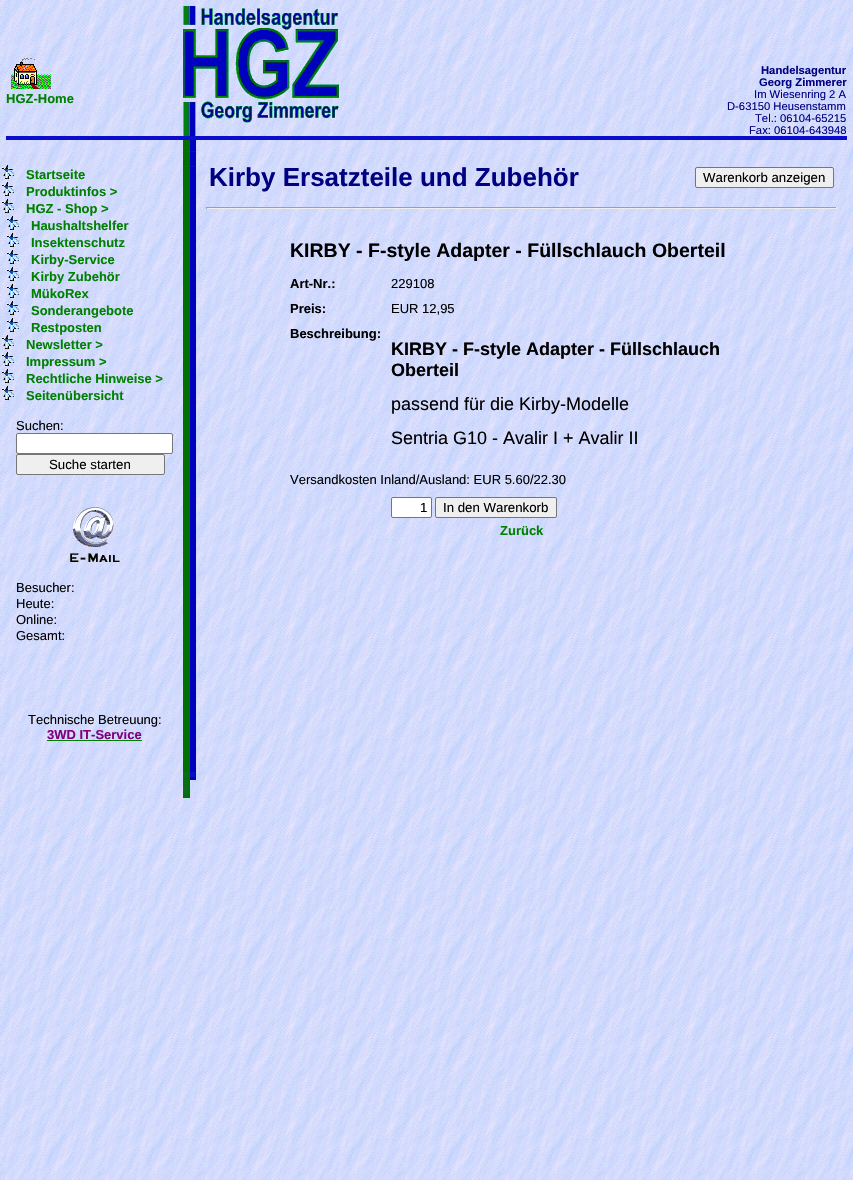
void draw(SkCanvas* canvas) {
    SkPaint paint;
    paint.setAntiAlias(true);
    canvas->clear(0xFFFFFFFF);
    canvas->drawImageRect(SkImages::DeferredFromEncodedData(SkData::MakeFromFileName("img1.png")), SkRect::MakeXYWH(0, 0, 853, 1180), SkSamplingOptions());
    canvas->drawImageRect(SkImages::DeferredFromEncodedData(SkData::MakeFromFileName("img2.png")), SkRect::MakeXYWH(11, 58, 40, 31), SkSamplingOptions());
    SkFont font1(fontMgr->matchFamilyStyle("Liberation Sans", SkFontStyle::Bold()), 13);
    font1.setSubpixel(true);
    paint.setColor(0xFF008000);
    canvas->drawString("HGZ-Home", 6, 103, font1, paint);
    canvas->drawImageRect(SkImages::DeferredFromEncodedData(SkData::MakeFromFileName("img3.png")), SkRect::MakeXYWH(183, 6, 13, 130), SkSamplingOptions());
    canvas->drawImageRect(SkImages::DeferredFromEncodedData(SkData::MakeFromFileName("img4.png")), SkRect::MakeXYWH(196, 8, 143, 115), SkSamplingOptions());
    SkFont font2(fontMgr->matchFamilyStyle("Liberation Sans", SkFontStyle::Bold()), 11.25f);
    font2.setSubpixel(true);
    paint.setColor(0xFF000080);
    canvas->drawString("Handelsagentur", 761, 74, font2, paint);
    canvas->drawString("Georg Zimmerer", 759, 86, font2, paint);
    SkFont font3(fontMgr->matchFamilyStyle("Liberation Sans", SkFontStyle::Normal()), 11.25f);
    font3.setSubpixel(true);
    canvas->drawString("Im Wiesenring 2 A", 754, 98, font3, paint);
    canvas->drawString("D-63150 Heusenstamm", 727, 110, font3, paint);
    canvas->drawString("Tel.: 06104-65215", 755, 122, font3, paint);
    canvas->drawString("Fax: 06104-643948", 749, 134, font3, paint);
    paint.setColor(0xFF0C0CCC);
    canvas->drawRect(SkRect::MakeXYWH(6, 136, 841, 4), paint);
    paint.setColor(0xFF007000);
    canvas->drawRect(SkRect::MakeXYWH(183, 140, 7, 658), paint);
    paint.setColor(0xFF0C6C1C);
    canvas->drawRect(SkRect::MakeXYWH(183, 151, 7, 1), paint);
    paint.setColor(0xFF0000C0);
    canvas->drawRect(SkRect::MakeXYWH(190, 140, 6, 640), paint);
    paint.setColor(0xFF0C0CCC);
    canvas->drawRect(SkRect::MakeXYWH(190, 151, 6, 1), paint);
    paint.setColor(0xFF0C6C1C);
    canvas->drawRect(SkRect::MakeXYWH(183, 166, 5, 1), paint);
    paint.setColor(0xFF0C0CCC);
    canvas->drawRect(SkRect::MakeXYWH(190, 166, 5, 1), paint);
    canvas->drawImageRect(SkImages::DeferredFromEncodedData(SkData::MakeFromFileName("img5.png")), SkRect::MakeXYWH(2, 165, 12, 14), SkSamplingOptions());
    paint.setColor(0xFF008000);
    canvas->drawString("Startseite", 26, 179, font1, paint);
    canvas->drawImageRect(SkImages::DeferredFromEncodedData(SkData::MakeFromFileName("img6.png")), SkRect::MakeXYWH(2, 182, 12, 14), SkSamplingOptions());
    canvas->drawString("Produktinfos >", 26, 196, font1, paint);
    canvas->drawImageRect(SkImages::DeferredFromEncodedData(SkData::MakeFromFileName("img7.png")), SkRect::MakeXYWH(2, 199, 12, 14), SkSamplingOptions());
    canvas->drawString("HGZ - Shop >", 26, 213, font1, paint);
    canvas->drawImageRect(SkImages::DeferredFromEncodedData(SkData::MakeFromFileName("img8.png")), SkRect::MakeXYWH(7, 216, 12, 14), SkSamplingOptions());
    canvas->drawString("Haushaltshelfer", 31, 230, font1, paint);
    canvas->drawImageRect(SkImages::DeferredFromEncodedData(SkData::MakeFromFileName("img9.png")), SkRect::MakeXYWH(7, 233, 12, 14), SkSamplingOptions());
    canvas->drawString("Insektenschutz", 31, 247, font1, paint);
    canvas->drawImageRect(SkImages::DeferredFromEncodedData(SkData::MakeFromFileName("img10.png")), SkRect::MakeXYWH(7, 250, 12, 14), SkSamplingOptions());
    canvas->drawString("Kirby-Service", 31, 264, font1, paint);
    canvas->drawImageRect(SkImages::DeferredFromEncodedData(SkData::MakeFromFileName("img11.png")), SkRect::MakeXYWH(7, 267, 12, 14), SkSamplingOptions());
    canvas->drawString("Kirby Zubehör", 31, 281, font1, paint);
    canvas->drawImageRect(SkImages::DeferredFromEncodedData(SkData::MakeFromFileName("img12.png")), SkRect::MakeXYWH(7, 284, 12, 14), SkSamplingOptions());
    canvas->drawString("MükoRex", 31, 298, font1, paint);
    canvas->drawImageRect(SkImages::DeferredFromEncodedData(SkData::MakeFromFileName("img13.png")), SkRect::MakeXYWH(7, 301, 12, 14), SkSamplingOptions());
    canvas->drawString("Sonderangebote", 31, 315, font1, paint);
    canvas->drawImageRect(SkImages::DeferredFromEncodedData(SkData::MakeFromFileName("img14.png")), SkRect::MakeXYWH(7, 318, 12, 14), SkSamplingOptions());
    canvas->drawString("Restposten", 31, 332, font1, paint);
    canvas->drawImageRect(SkImages::DeferredFromEncodedData(SkData::MakeFromFileName("img15.png")), SkRect::MakeXYWH(2, 335, 12, 14), SkSamplingOptions());
    canvas->drawString("Newsletter >", 26, 349, font1, paint);
    canvas->drawImageRect(SkImages::DeferredFromEncodedData(SkData::MakeFromFileName("img16.png")), SkRect::MakeXYWH(2, 352, 12, 14), SkSamplingOptions());
    canvas->drawString("Impressum >", 26, 366, font1, paint);
    canvas->drawImageRect(SkImages::DeferredFromEncodedData(SkData::MakeFromFileName("img17.png")), SkRect::MakeXYWH(2, 369, 12, 14), SkSamplingOptions());
    canvas->drawString("Rechtliche Hinweise >", 26, 383, font1, paint);
    canvas->drawImageRect(SkImages::DeferredFromEncodedData(SkData::MakeFromFileName("img18.png")), SkRect::MakeXYWH(2, 386, 12, 14), SkSamplingOptions());
    canvas->drawString("Seitenübersicht", 26, 400, font1, paint);
    SkFont font4(fontMgr->matchFamilyStyle("Liberation Sans", SkFontStyle::Normal()), 13);
    font4.setSubpixel(true);
    paint.setColor(0xFF000000);
    canvas->drawString("Suchen:", 16, 430, font4, paint);
    paint.setColor(0xFFFFFFFF);
    canvas->drawRoundRect(SkRect::MakeXYWH(16.5f, 433.5f, 156, 20), 1.5f, 1.5f, paint);
    paint.setStyle(SkPaint::kStroke_Style);
    paint.setStrokeWidth(1);
    paint.setColor(0xFF767676);
    canvas->drawRoundRect(SkRect::MakeXYWH(16.5f, 433.5f, 156, 20), 1.5f, 1.5f, paint);
    paint.setStyle(SkPaint::kFill_Style);
    paint.setColor(0xFFEFEFEF);
    canvas->drawRoundRect(SkRect::MakeXYWH(16.5f, 454.5f, 148, 20), 1.5f, 1.5f, paint);
    paint.setStyle(SkPaint::kStroke_Style);
    paint.setColor(0xFF767676);
    canvas->drawRoundRect(SkRect::MakeXYWH(16.5f, 454.5f, 148, 20), 1.5f, 1.5f, paint);
    SkFont font5(fontMgr->matchFamilyStyle("Liberation Sans", SkFontStyle::Normal()), 13.25f);
    font5.setSubpixel(true);
    paint.setStyle(SkPaint::kFill_Style);
    paint.setColor(0xFF000000);
    canvas->drawString("Suche starten", 49, 469, font5, paint);
    canvas->drawImageRect(SkImages::DeferredFromEncodedData(SkData::MakeFromFileName("img19.png")), SkRect::MakeXYWH(70, 507, 50, 55), SkSamplingOptions());
    canvas->drawString("Besucher:", 16, 592, font4, paint);
    canvas->drawString("Heute:", 16, 608, font4, paint);
    canvas->drawString("Online:", 16, 624, font4, paint);
    canvas->drawString("Gesamt:", 16, 640, font4, paint);
    canvas->drawString("Technische Betreuung:", 28, 724, font4, paint);
    paint.setColor(0xFF800080);
    canvas->drawString("3WD IT-Service", 47, 739, font1, paint);
    paint.setColor(0xFF008000);
    canvas->drawRect(SkRect::MakeXYWH(47, 740, 95, 1), paint);
    SkFont font6(fontMgr->matchFamilyStyle("Liberation Sans", SkFontStyle::Bold()), 26);
    font6.setSubpixel(true);
    paint.setColor(0xFF000080);
    canvas->drawString("Kirby Ersatzteile und Zubehör", 209, 186, font6, paint);
    paint.setColor(0xFFEFEFEF);
    canvas->drawRoundRect(SkRect::MakeXYWH(695.5f, 167.5f, 138, 20), 1.5f, 1.5f, paint);
    paint.setStyle(SkPaint::kStroke_Style);
    paint.setColor(0xFF767676);
    canvas->drawRoundRect(SkRect::MakeXYWH(695.5f, 167.5f, 138, 20), 1.5f, 1.5f, paint);
    paint.setStyle(SkPaint::kFill_Style);
    paint.setColor(0xFF000000);
    canvas->drawString("Warenkorb anzeigen", 703, 182, font5, paint);
    paint.setColor(0xFF9F9F9F);
    canvas->drawRect(SkRect::MakeXYWH(206, 207, 631, 1), paint);
    paint.setColor(0xFFEEEEEE);
    canvas->drawRect(SkRect::MakeXYWH(836, 207, 1, 2), paint);
    canvas->drawRect(SkRect::MakeXYWH(206, 208, 631, 1), paint);
    paint.setColor(0xFF9F9F9F);
    canvas->drawRect(SkRect::MakeXYWH(206, 207, 1, 2), paint);
    SkFont font7(fontMgr->matchFamilyStyle("Liberation Sans", SkFontStyle::Bold()), 19.5f);
    font7.setSubpixel(true);
    paint.setColor(0xFF000000);
    canvas->drawString("KIRBY - F-style Adapter - Füllschlauch Oberteil", 290, 257, font7, paint);
    canvas->drawString("Art-Nr.:", 290, 288, font1, paint);
    canvas->drawString("229108", 391, 288, font4, paint);
    canvas->drawString("Preis:", 290, 313, font1, paint);
    canvas->drawString("EUR 12,95", 391, 313, font4, paint);
    canvas->drawString("Beschreibung:", 290, 338, font1, paint);
    SkFont font8(fontMgr->matchFamilyStyle("Liberation Sans", SkFontStyle::Bold()), 18);
    font8.setSubpixel(true);
    canvas->drawString("KIRBY - F-style Adapter - Füllschlauch", 391, 355, font8, paint);
    canvas->drawString("Oberteil", 391, 376, font8, paint);
    SkFont font9(fontMgr->matchFamilyStyle("Liberation Sans", SkFontStyle::Normal()), 18);
    font9.setSubpixel(true);
    canvas->drawString("passend für die Kirby-Modelle", 391, 410, font9, paint);
    canvas->drawString("Sentria G10 - Avalir I + Avalir II", 391, 444, font9, paint);
    canvas->drawString("Versandkosten Inland/Ausland: EUR 5.60/22.30", 290, 484, font4, paint);
    paint.setColor(0xFFFFFFFF);
    canvas->drawRoundRect(SkRect::MakeXYWH(391.5f, 497.5f, 40, 20), 1.5f, 1.5f, paint);
    paint.setStyle(SkPaint::kStroke_Style);
    paint.setColor(0xFF767676);
    canvas->drawRoundRect(SkRect::MakeXYWH(391.5f, 497.5f, 40, 20), 1.5f, 1.5f, paint);
    paint.setStyle(SkPaint::kFill_Style);
    paint.setColor(0xFF000000);
    canvas->drawString("1", 420, 512, font5, paint);
    paint.setColor(0xFFEFEFEF);
    canvas->drawRoundRect(SkRect::MakeXYWH(435.5f, 497.5f, 121, 20), 1.5f, 1.5f, paint);
    paint.setStyle(SkPaint::kStroke_Style);
    paint.setColor(0xFF767676);
    canvas->drawRoundRect(SkRect::MakeXYWH(435.5f, 497.5f, 121, 20), 1.5f, 1.5f, paint);
    paint.setStyle(SkPaint::kFill_Style);
    paint.setColor(0xFF000000);
    canvas->drawString("In den Warenkorb", 443, 512, font5, paint);
    paint.setColor(0xFF008000);
    canvas->drawString("Zurück", 500, 535, font1, paint);
    paint.setColor(0xFF0C6C1C);
    canvas->drawRect(SkRect::MakeXYWH(183, 772, 5, 5), paint);
    paint.setColor(0xFF0C0CCC);
    canvas->drawRect(SkRect::MakeXYWH(190, 772, 5, 5), paint);
    paint.setColor(0xFF0C6C1C);
    canvas->drawRect(SkRect::MakeXYWH(183, 780, 5, 15), paint);
}
